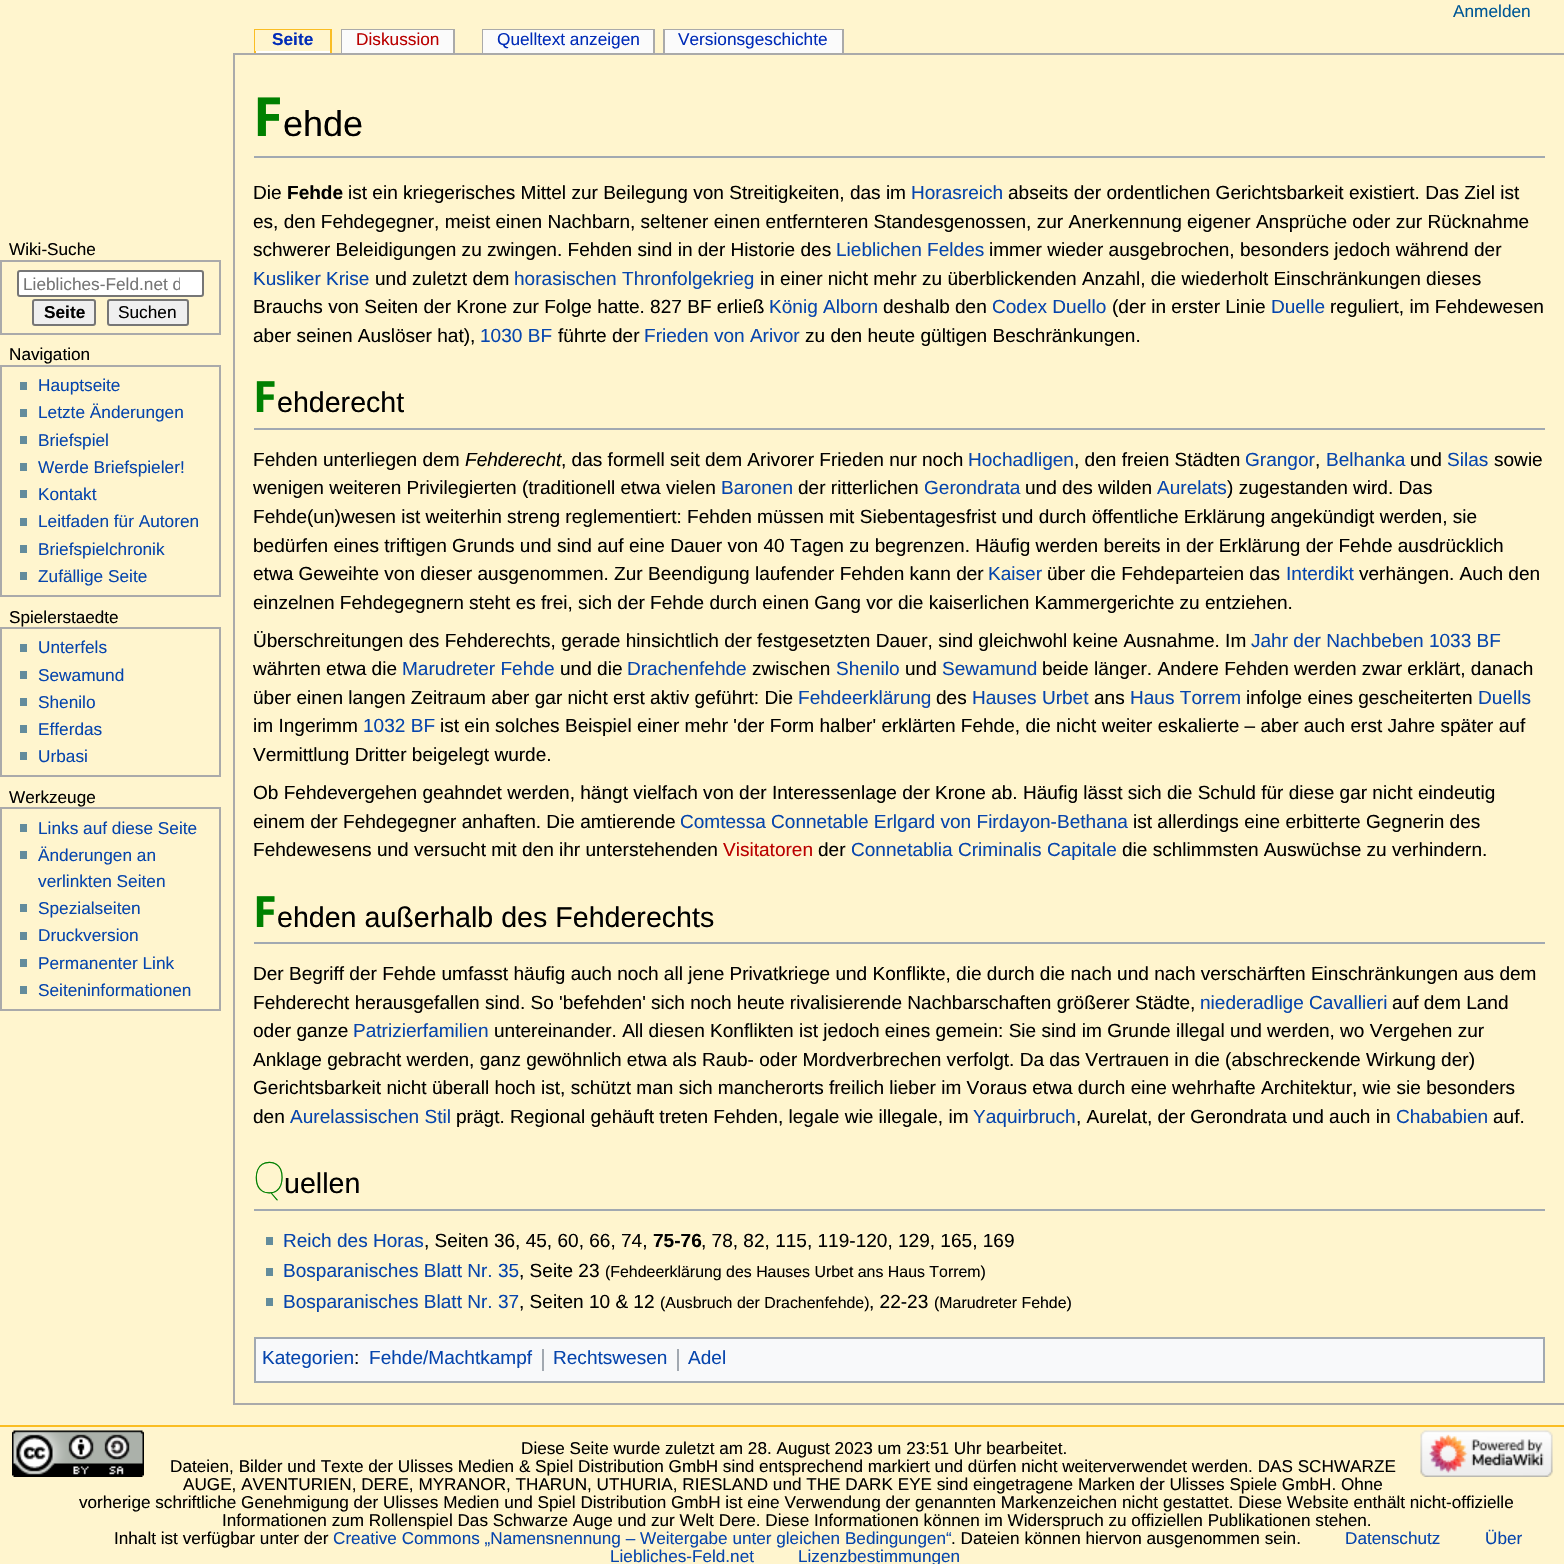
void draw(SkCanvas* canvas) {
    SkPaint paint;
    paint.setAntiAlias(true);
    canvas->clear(0xFFFFF5CE);
    SkFont font1(fontMgr->matchFamilyStyle("Liberation Sans", SkFontStyle::Normal()), 17.25f);
    font1.setSubpixel(true);
    paint.setColor(0xFF005896);
    canvas->drawString("Anmelden", 1453, 17, font1, paint);
    SkFont font2(fontMgr->matchFamilyStyle("Liberation Sans", SkFontStyle::Bold()), 17.25f);
    font2.setSubpixel(true);
    paint.setColor(0xFF002BB8);
    canvas->drawString("Seite", 272, 45, font2, paint);
    paint.setColor(0xFFFFFFFF);
    canvas->drawRect(SkRect::MakeXYWH(256, 51, 74, 2), paint);
    paint.setColor(0xFFFABD23);
    canvas->drawRect(SkRect::MakeXYWH(254, 29, 78, 1), paint);
    canvas->drawRect(SkRect::MakeXYWH(330, 29, 2, 24), paint);
    canvas->drawRect(SkRect::MakeXYWH(254, 29, 2, 24), paint);
    paint.setColor(0xFFFFF5CE);
    canvas->drawRect(SkRect::MakeXYWH(255, 30, 1, 21), paint);
    paint.setColor(0xFFAAAAAA);
    canvas->drawRect(SkRect::MakeXYWH(341, 29, 114, 1), paint);
    canvas->drawRect(SkRect::MakeXYWH(341, 29, 2, 24), paint);
    paint.setColor(0xFFFBFBFB);
    canvas->drawRect(SkRect::MakeXYWH(342, 30, 111, 23), paint);
    paint.setColor(0xFFBA0000);
    canvas->drawString("Diskussion", 356, 45, font1, paint);
    paint.setColor(0xFFAAAAAA);
    canvas->drawRect(SkRect::MakeXYWH(453, 29, 2, 24), paint);
    canvas->drawRect(SkRect::MakeXYWH(482, 29, 172, 1), paint);
    canvas->drawRect(SkRect::MakeXYWH(482, 29, 2, 24), paint);
    paint.setColor(0xFFFBFBFB);
    canvas->drawRect(SkRect::MakeXYWH(483, 30, 170, 23), paint);
    paint.setColor(0xFF002BB8);
    canvas->drawString("Quelltext anzeigen", 497, 45, font1, paint);
    paint.setColor(0xFFAAAAAA);
    canvas->drawRect(SkRect::MakeXYWH(653, 29, 2, 24), paint);
    paint.setColor(0xFFFBFBFB);
    canvas->drawRect(SkRect::MakeXYWH(665, 30, 177, 23), paint);
    paint.setColor(0xFF002BB8);
    canvas->drawString("Versionsgeschichte", 678, 45, font1, paint);
    paint.setColor(0xFFAAAAAA);
    canvas->drawRect(SkRect::MakeXYWH(663, 29, 180, 1), paint);
    canvas->drawRect(SkRect::MakeXYWH(842, 29, 2, 24), paint);
    canvas->drawRect(SkRect::MakeXYWH(663, 29, 2, 24), paint);
    SkFont font3(fontMgr->matchFamilyStyle("Liberation Sans", SkFontStyle::Normal()), 17.15f);
    font3.setSubpixel(true);
    paint.setColor(0xFF000000);
    canvas->drawString("Wiki-Suche", 9, 255, font3, paint);
    paint.setStyle(SkPaint::kStroke_Style);
    paint.setStrokeWidth(2);
    paint.setColor(0xFFAAAAAA);
    canvas->drawRect(SkRect::MakeXYWH(1, 261, 219, 73), paint);
    paint.setStyle(SkPaint::kFill_Style);
    paint.setColor(0xFFFFFFFF);
    canvas->drawRoundRect(SkRect::MakeXYWH(18, 271, 185, 25), 2, 2, paint);
    paint.setStyle(SkPaint::kStroke_Style);
    paint.setColor(0xFF767676);
    canvas->drawRoundRect(SkRect::MakeXYWH(18, 271, 185, 25), 2, 2, paint);
    canvas->save();
    canvas->clipRect(SkRect::MakeXYWH(23, 275, 157, 18));
    paint.setStyle(SkPaint::kFill_Style);
    paint.setColor(0xFF757575);
    canvas->drawString("Liebliches-Feld.net d", 23, 290, font1, paint);
    canvas->restore();
    paint.setColor(0xFFEFEFEF);
    canvas->drawRoundRect(SkRect::MakeXYWH(33, 300, 62, 25), 2, 2, paint);
    paint.setStyle(SkPaint::kStroke_Style);
    paint.setColor(0xFF767676);
    canvas->drawRoundRect(SkRect::MakeXYWH(33, 300, 62, 25), 2, 2, paint);
    paint.setStyle(SkPaint::kFill_Style);
    paint.setColor(0xFF000000);
    canvas->drawString("Seite", 44, 318, font2, paint);
    paint.setColor(0xFFEFEFEF);
    canvas->drawRoundRect(SkRect::MakeXYWH(108, 300, 80, 25), 2, 2, paint);
    paint.setStyle(SkPaint::kStroke_Style);
    paint.setColor(0xFF767676);
    canvas->drawRoundRect(SkRect::MakeXYWH(108, 300, 80, 25), 2, 2, paint);
    paint.setStyle(SkPaint::kFill_Style);
    paint.setColor(0xFF000000);
    canvas->drawString("Suchen", 118, 318, font1, paint);
    canvas->drawString("Navigation", 9, 360, font3, paint);
    paint.setStyle(SkPaint::kStroke_Style);
    paint.setColor(0xFFAAAAAA);
    canvas->drawRect(SkRect::MakeXYWH(1, 366, 219, 230), paint);
    paint.setStyle(SkPaint::kFill_Style);
    paint.setColor(0xFF638C9C);
    canvas->drawRect(SkRect::MakeXYWH(20, 382, 7, 8), paint);
    paint.setColor(0xFF0645AD);
    canvas->drawString("Hauptseite", 38, 391, font1, paint);
    paint.setColor(0xFF638C9C);
    canvas->drawRect(SkRect::MakeXYWH(20, 409, 7, 8), paint);
    paint.setColor(0xFF0645AD);
    canvas->drawString("Letzte Änderungen", 38, 418, font1, paint);
    paint.setColor(0xFF638C9C);
    canvas->drawRect(SkRect::MakeXYWH(20, 436, 7, 8), paint);
    paint.setColor(0xFF0645AD);
    canvas->drawString("Briefspiel", 38, 446, font1, paint);
    paint.setColor(0xFF638C9C);
    canvas->drawRect(SkRect::MakeXYWH(20, 463, 7, 8), paint);
    paint.setColor(0xFF0645AD);
    canvas->drawString("Werde Briefspieler!", 38, 473, font1, paint);
    paint.setColor(0xFF638C9C);
    canvas->drawRect(SkRect::MakeXYWH(20, 490, 7, 8), paint);
    paint.setColor(0xFF0645AD);
    canvas->drawString("Kontakt", 38, 500, font1, paint);
    paint.setColor(0xFF638C9C);
    canvas->drawRect(SkRect::MakeXYWH(20, 518, 7, 8), paint);
    paint.setColor(0xFF0645AD);
    canvas->drawString("Leitfaden für Autoren", 38, 527, font1, paint);
    paint.setColor(0xFF638C9C);
    canvas->drawRect(SkRect::MakeXYWH(20, 545, 7, 8), paint);
    paint.setColor(0xFF0645AD);
    canvas->drawString("Briefspielchronik", 38, 555, font1, paint);
    paint.setColor(0xFF638C9C);
    canvas->drawRect(SkRect::MakeXYWH(20, 572, 7, 8), paint);
    paint.setColor(0xFF0645AD);
    canvas->drawString("Zufällige Seite", 38, 582, font1, paint);
    paint.setColor(0xFF000000);
    canvas->drawString("Spielerstaedte", 9, 623, font3, paint);
    paint.setStyle(SkPaint::kStroke_Style);
    paint.setColor(0xFFAAAAAA);
    canvas->drawRect(SkRect::MakeXYWH(1, 628, 219, 148), paint);
    paint.setStyle(SkPaint::kFill_Style);
    paint.setColor(0xFF638C9C);
    canvas->drawRect(SkRect::MakeXYWH(20, 644, 7, 8), paint);
    paint.setColor(0xFF0645AD);
    canvas->drawString("Unterfels", 38, 653, font1, paint);
    paint.setColor(0xFF638C9C);
    canvas->drawRect(SkRect::MakeXYWH(20, 671, 7, 8), paint);
    paint.setColor(0xFF0645AD);
    canvas->drawString("Sewamund", 38, 681, font1, paint);
    paint.setColor(0xFF638C9C);
    canvas->drawRect(SkRect::MakeXYWH(20, 698, 7, 8), paint);
    paint.setColor(0xFF0645AD);
    canvas->drawString("Shenilo", 38, 708, font1, paint);
    paint.setColor(0xFF638C9C);
    canvas->drawRect(SkRect::MakeXYWH(20, 725, 7, 8), paint);
    paint.setColor(0xFF0645AD);
    canvas->drawString("Efferdas", 38, 735, font1, paint);
    paint.setColor(0xFF638C9C);
    canvas->drawRect(SkRect::MakeXYWH(20, 752, 7, 8), paint);
    paint.setColor(0xFF0645AD);
    canvas->drawString("Urbasi", 38, 762, font1, paint);
    paint.setColor(0xFF000000);
    canvas->drawString("Werkzeuge", 9, 803, font3, paint);
    paint.setStyle(SkPaint::kStroke_Style);
    paint.setColor(0xFFAAAAAA);
    canvas->drawRect(SkRect::MakeXYWH(1, 808, 219, 202), paint);
    paint.setStyle(SkPaint::kFill_Style);
    paint.setColor(0xFF638C9C);
    canvas->drawRect(SkRect::MakeXYWH(20, 824, 7, 8), paint);
    paint.setColor(0xFF0645AD);
    canvas->drawString("Links auf diese Seite", 38, 834, font1, paint);
    paint.setColor(0xFF638C9C);
    canvas->drawRect(SkRect::MakeXYWH(20, 851, 7, 8), paint);
    paint.setColor(0xFF0645AD);
    canvas->drawString("Änderungen an", 38, 861, font1, paint);
    canvas->drawString("verlinkten Seiten", 38, 887, font1, paint);
    paint.setColor(0xFF638C9C);
    canvas->drawRect(SkRect::MakeXYWH(20, 904, 7, 8), paint);
    paint.setColor(0xFF0645AD);
    canvas->drawString("Spezialseiten", 38, 914, font1, paint);
    paint.setColor(0xFF638C9C);
    canvas->drawRect(SkRect::MakeXYWH(20, 932, 7, 8), paint);
    paint.setColor(0xFF0645AD);
    canvas->drawString("Druckversion", 38, 941, font1, paint);
    paint.setColor(0xFF638C9C);
    canvas->drawRect(SkRect::MakeXYWH(20, 959, 7, 8), paint);
    paint.setColor(0xFF0645AD);
    canvas->drawString("Permanenter Link", 38, 969, font1, paint);
    paint.setColor(0xFF638C9C);
    canvas->drawRect(SkRect::MakeXYWH(20, 986, 7, 8), paint);
    paint.setColor(0xFF0645AD);
    canvas->drawString("Seiteninformationen", 38, 996, font1, paint);
    paint.setColor(0xFFAAAAAA);
    canvas->drawRect(SkRect::MakeXYWH(233, 53, 1331, 2), paint);
    canvas->drawRect(SkRect::MakeXYWH(233, 1403, 1331, 2), paint);
    canvas->drawRect(SkRect::MakeXYWH(233, 53, 2, 1351), paint);
    paint.setColor(0xFFA2A9B1);
    canvas->drawRect(SkRect::MakeXYWH(254, 156, 1291, 2), paint);
    SkFont font4(fontMgr->matchFamilyStyle("Noto Sans", SkFontStyle::Bold()), 54);
    font4.setSubpixel(true);
    paint.setColor(0xFF008000);
    canvas->drawString("F", 253, 136, font4, paint);
    SkFont font5(fontMgr->matchFamilyStyle("Liberation Sans", SkFontStyle::Normal()), 36);
    font5.setSubpixel(true);
    paint.setColor(0xFF000000);
    canvas->drawString("ehde", 283, 136, font5, paint);
    SkFont font6(fontMgr->matchFamilyStyle("Liberation Sans", SkFontStyle::Normal()), 19.05f);
    font6.setSubpixel(true);
    canvas->drawString("Die", 253, 199, font6, paint);
    SkFont font7(fontMgr->matchFamilyStyle("Liberation Sans", SkFontStyle::Bold()), 19.05f);
    font7.setSubpixel(true);
    canvas->drawString("Fehde", 287, 199, font7, paint);
    canvas->drawString("ist ein kriegerisches Mittel zur Beilegung von Streitigkeiten, das im", 348, 199, font6, paint);
    paint.setColor(0xFF0645AD);
    canvas->drawString("Horasreich", 911, 199, font6, paint);
    paint.setColor(0xFF000000);
    canvas->drawString("abseits der ordentlichen Gerichtsbarkeit existiert. Das Ziel ist", 1008, 199, font6, paint);
    canvas->drawString("es, den Fehdegegner, meist einen Nachbarn, seltener einen entfernteren Standesgenossen, zur Anerkennung eigener Ansprüche oder zur Rücknahme", 253, 228, font6, paint);
    canvas->drawString("schwerer Beleidigungen zu zwingen. Fehden sind in der Historie des", 253, 256, font6, paint);
    paint.setColor(0xFF0645AD);
    canvas->drawString("Lieblichen Feldes", 836, 256, font6, paint);
    paint.setColor(0xFF000000);
    canvas->drawString("immer wieder ausgebrochen, besonders jedoch während der", 989, 256, font6, paint);
    paint.setColor(0xFF0645AD);
    canvas->drawString("Kusliker Krise", 253, 285, font6, paint);
    paint.setColor(0xFF000000);
    canvas->drawString("und zuletzt dem", 375, 285, font6, paint);
    paint.setColor(0xFF0645AD);
    canvas->drawString("horasischen Thronfolgekrieg", 514, 285, font6, paint);
    paint.setColor(0xFF000000);
    canvas->drawString("in einer nicht mehr zu überblickenden Anzahl, die wiederholt Einschränkungen dieses", 760, 285, font6, paint);
    canvas->drawString("Brauchs von Seiten der Krone zur Folge hatte. 827 BF erließ", 253, 313, font6, paint);
    paint.setColor(0xFF0645AD);
    canvas->drawString("König Alborn", 769, 313, font6, paint);
    paint.setColor(0xFF000000);
    canvas->drawString("deshalb den", 883, 313, font6, paint);
    paint.setColor(0xFF0645AD);
    canvas->drawString("Codex Duello", 992, 313, font6, paint);
    paint.setColor(0xFF000000);
    canvas->drawString("(der in erster Linie", 1112, 313, font6, paint);
    paint.setColor(0xFF0645AD);
    canvas->drawString("Duelle", 1271, 313, font6, paint);
    paint.setColor(0xFF000000);
    canvas->drawString("reguliert, im Fehdewesen", 1330, 313, font6, paint);
    canvas->drawString("aber seinen Auslöser hat),", 253, 342, font6, paint);
    paint.setColor(0xFF0645AD);
    canvas->drawString("1030 BF", 480, 342, font6, paint);
    paint.setColor(0xFF000000);
    canvas->drawString("führte der", 558, 342, font6, paint);
    paint.setColor(0xFF0645AD);
    canvas->drawString("Frieden von Arivor", 644, 342, font6, paint);
    paint.setColor(0xFF000000);
    canvas->drawString("zu den heute gültigen Beschränkungen.", 805, 342, font6, paint);
    paint.setColor(0xFFA2A9B1);
    canvas->drawRect(SkRect::MakeXYWH(254, 428, 1291, 2), paint);
    SkFont font8(fontMgr->matchFamilyStyle("Noto Sans", SkFontStyle::Bold()), 43);
    font8.setSubpixel(true);
    paint.setColor(0xFF008000);
    canvas->drawString("F", 253, 412, font8, paint);
    SkFont font9(fontMgr->matchFamilyStyle("Liberation Sans", SkFontStyle::Normal()), 28.6f);
    font9.setSubpixel(true);
    paint.setColor(0xFF000000);
    canvas->drawString("ehderecht", 277, 412, font9, paint);
    canvas->drawString("Fehden unterliegen dem", 253, 466, font6, paint);
    SkFont font10(fontMgr->matchFamilyStyle("Liberation Sans", SkFontStyle::Italic()), 19.05f);
    font10.setSubpixel(true);
    canvas->drawString("Fehderecht", 465, 466, font10, paint);
    canvas->drawString(", das formell seit dem Arivorer Frieden nur noch", 561, 466, font6, paint);
    paint.setColor(0xFF0645AD);
    canvas->drawString("Hochadligen", 968, 466, font6, paint);
    paint.setColor(0xFF000000);
    canvas->drawString(", den freien Städten", 1074, 466, font6, paint);
    paint.setColor(0xFF0645AD);
    canvas->drawString("Grangor", 1245, 466, font6, paint);
    paint.setColor(0xFF000000);
    canvas->drawString(",", 1315, 466, font6, paint);
    paint.setColor(0xFF0645AD);
    canvas->drawString("Belhanka", 1326, 466, font6, paint);
    paint.setColor(0xFF000000);
    canvas->drawString("und", 1410, 466, font6, paint);
    paint.setColor(0xFF0645AD);
    canvas->drawString("Silas", 1447, 466, font6, paint);
    paint.setColor(0xFF000000);
    canvas->drawString("sowie", 1494, 466, font6, paint);
    canvas->drawString("wenigen weiteren Privilegierten (traditionell etwa vielen", 253, 494, font6, paint);
    paint.setColor(0xFF0645AD);
    canvas->drawString("Baronen", 721, 494, font6, paint);
    paint.setColor(0xFF000000);
    canvas->drawString("der ritterlichen", 798, 494, font6, paint);
    paint.setColor(0xFF0645AD);
    canvas->drawString("Gerondrata", 924, 494, font6, paint);
    paint.setColor(0xFF000000);
    canvas->drawString("und des wilden", 1025, 494, font6, paint);
    paint.setColor(0xFF0645AD);
    canvas->drawString("Aurelats", 1157, 494, font6, paint);
    paint.setColor(0xFF000000);
    canvas->drawString(") zugestanden wird. Das", 1227, 494, font6, paint);
    canvas->drawString("Fehde(un)wesen ist weiterhin streng reglementiert: Fehden müssen mit Siebentagesfrist und durch öffentliche Erklärung angekündigt werden, sie", 253, 523, font6, paint);
    canvas->drawString("bedürfen eines triftigen Grunds und sind auf eine Dauer von 40 Tagen zu begrenzen. Häufig werden bereits in der Erklärung der Fehde ausdrücklich", 253, 552, font6, paint);
    canvas->drawString("etwa Geweihte von dieser ausgenommen. Zur Beendigung laufender Fehden kann der", 253, 580, font6, paint);
    paint.setColor(0xFF0645AD);
    canvas->drawString("Kaiser", 988, 580, font6, paint);
    paint.setColor(0xFF000000);
    canvas->drawString("über die Fehdeparteien das", 1047, 580, font6, paint);
    paint.setColor(0xFF0645AD);
    canvas->drawString("Interdikt", 1286, 580, font6, paint);
    paint.setColor(0xFF000000);
    canvas->drawString("verhängen. Auch den", 1359, 580, font6, paint);
    canvas->drawString("einzelnen Fehdegegnern steht es frei, sich der Fehde durch einen Gang vor die kaiserlichen Kammergerichte zu entziehen.", 253, 609, font6, paint);
    canvas->drawString("Überschreitungen des Fehderechts, gerade hinsichtlich der festgesetzten Dauer, sind gleichwohl keine Ausnahme. Im", 253, 647, font6, paint);
    paint.setColor(0xFF0645AD);
    canvas->drawString("Jahr der Nachbeben 1033 BF", 1251, 647, font6, paint);
    paint.setColor(0xFF000000);
    canvas->drawString("währten etwa die", 253, 675, font6, paint);
    paint.setColor(0xFF0645AD);
    canvas->drawString("Marudreter Fehde", 402, 675, font6, paint);
    paint.setColor(0xFF000000);
    canvas->drawString("und die", 560, 675, font6, paint);
    paint.setColor(0xFF0645AD);
    canvas->drawString("Drachenfehde", 627, 675, font6, paint);
    paint.setColor(0xFF000000);
    canvas->drawString("zwischen", 752, 675, font6, paint);
    paint.setColor(0xFF0645AD);
    canvas->drawString("Shenilo", 836, 675, font6, paint);
    paint.setColor(0xFF000000);
    canvas->drawString("und", 905, 675, font6, paint);
    paint.setColor(0xFF0645AD);
    canvas->drawString("Sewamund", 942, 675, font6, paint);
    paint.setColor(0xFF000000);
    canvas->drawString("beide länger. Andere Fehden werden zwar erklärt, danach", 1042, 675, font6, paint);
    canvas->drawString("über einen langen Zeitraum aber gar nicht erst aktiv geführt: Die", 253, 704, font6, paint);
    paint.setColor(0xFF0645AD);
    canvas->drawString("Fehdeerklärung", 798, 704, font6, paint);
    paint.setColor(0xFF000000);
    canvas->drawString("des", 936, 704, font6, paint);
    paint.setColor(0xFF0645AD);
    canvas->drawString("Hauses Urbet", 972, 704, font6, paint);
    paint.setColor(0xFF000000);
    canvas->drawString("ans", 1094, 704, font6, paint);
    paint.setColor(0xFF0645AD);
    canvas->drawString("Haus Torrem", 1130, 704, font6, paint);
    paint.setColor(0xFF000000);
    canvas->drawString("infolge eines gescheiterten", 1246, 704, font6, paint);
    paint.setColor(0xFF0645AD);
    canvas->drawString("Duells", 1478, 704, font6, paint);
    paint.setColor(0xFF000000);
    canvas->drawString("im Ingerimm", 253, 732, font6, paint);
    paint.setColor(0xFF0645AD);
    canvas->drawString("1032 BF", 363, 732, font6, paint);
    paint.setColor(0xFF000000);
    canvas->drawString("ist ein solches Beispiel einer mehr 'der Form halber' erklärten Fehde, die nicht weiter eskalierte – aber auch erst Jahre später auf", 440, 732, font6, paint);
    canvas->drawString("Vermittlung Dritter beigelegt wurde.", 253, 761, font6, paint);
    canvas->drawString("Ob Fehdevergehen geahndet werden, hängt vielfach von der Interessenlage der Krone ab. Häufig lässt sich die Schuld für diese gar nicht eindeutig", 253, 799, font6, paint);
    canvas->drawString("einem der Fehdegegner anhaften. Die amtierende", 253, 828, font6, paint);
    paint.setColor(0xFF0645AD);
    canvas->drawString("Comtessa Connetable Erlgard von Firdayon-Bethana", 680, 828, font6, paint);
    paint.setColor(0xFF000000);
    canvas->drawString("ist allerdings eine erbitterte Gegnerin des", 1133, 828, font6, paint);
    canvas->drawString("Fehdewesens und versucht mit den ihr unterstehenden", 253, 856, font6, paint);
    paint.setColor(0xFFBA0000);
    canvas->drawString("Visitatoren", 723, 856, font6, paint);
    paint.setColor(0xFF000000);
    canvas->drawString("der", 818, 856, font6, paint);
    paint.setColor(0xFF0645AD);
    canvas->drawString("Connetablia Criminalis Capitale", 851, 856, font6, paint);
    paint.setColor(0xFF000000);
    canvas->drawString("die schlimmsten Auswüchse zu verhindern.", 1122, 856, font6, paint);
    paint.setColor(0xFFA2A9B1);
    canvas->drawRect(SkRect::MakeXYWH(254, 942, 1291, 2), paint);
    paint.setColor(0xFF008000);
    canvas->drawString("F", 253, 927, font8, paint);
    paint.setColor(0xFF000000);
    canvas->drawString("ehden außerhalb des Fehderechts", 277, 927, font9, paint);
    canvas->drawString("Der Begriff der Fehde umfasst häufig auch noch all jene Privatkriege und Konflikte, die durch die nach und nach verschärften Einschränkungen aus dem", 253, 980, font6, paint);
    canvas->drawString("Fehderecht herausgefallen sind. So 'befehden' sich noch heute rivalisierende Nachbarschaften größerer Städte,", 253, 1009, font6, paint);
    paint.setColor(0xFF0645AD);
    canvas->drawString("niederadlige Cavallieri", 1200, 1009, font6, paint);
    paint.setColor(0xFF000000);
    canvas->drawString("auf dem Land", 1392, 1009, font6, paint);
    canvas->drawString("oder ganze", 253, 1037, font6, paint);
    paint.setColor(0xFF0645AD);
    canvas->drawString("Patrizierfamilien", 353, 1037, font6, paint);
    paint.setColor(0xFF000000);
    canvas->drawString("untereinander. All diesen Konflikten ist jedoch eines gemein: Sie sind im Grunde illegal und werden, wo Vergehen zur", 494, 1037, font6, paint);
    canvas->drawString("Anklage gebracht werden, ganz gewöhnlich etwa als Raub- oder Mordverbrechen verfolgt. Da das Vertrauen in die (abschreckende Wirkung der)", 253, 1066, font6, paint);
    canvas->drawString("Gerichtsbarkeit nicht überall hoch ist, schützt man sich mancherorts freilich lieber im Voraus etwa durch eine wehrhafte Architektur, wie sie besonders", 253, 1094, font6, paint);
    canvas->drawString("den", 253, 1123, font6, paint);
    paint.setColor(0xFF0645AD);
    canvas->drawString("Aurelassischen Stil", 290, 1123, font6, paint);
    paint.setColor(0xFF000000);
    canvas->drawString("prägt. Regional gehäuft treten Fehden, legale wie illegale, im", 456, 1123, font6, paint);
    paint.setColor(0xFF0645AD);
    canvas->drawString("Yaquirbruch", 973, 1123, font6, paint);
    paint.setColor(0xFF000000);
    canvas->drawString(", Aurelat, der Gerondrata und auch in", 1076, 1123, font6, paint);
    paint.setColor(0xFF0645AD);
    canvas->drawString("Chababien", 1396, 1123, font6, paint);
    paint.setColor(0xFF000000);
    canvas->drawString("auf.", 1493, 1123, font6, paint);
    paint.setColor(0xFFA2A9B1);
    canvas->drawRect(SkRect::MakeXYWH(254, 1209, 1291, 2), paint);
    SkFont font11(fontMgr->matchFamilyStyle("Noto Sans", SkFontStyle(100, SkFontStyle::kNormal_Width, SkFontStyle::kUpright_Slant)), 43);
    font11.setSubpixel(true);
    paint.setColor(0xFF008000);
    canvas->drawString("Q", 253, 1193, font11, paint);
    paint.setColor(0xFF000000);
    canvas->drawString("uellen", 284, 1193, font9, paint);
    paint.setColor(0xFF638C9C);
    canvas->drawRect(SkRect::MakeXYWH(266, 1237, 7, 8), paint);
    paint.setColor(0xFF0645AD);
    canvas->drawString("Reich des Horas", 283, 1247, font6, paint);
    paint.setColor(0xFF000000);
    canvas->drawString(", Seiten 36, 45, 60, 66, 74,", 424, 1247, font6, paint);
    canvas->drawString("75-76", 653, 1247, font7, paint);
    canvas->drawString(", 78, 82, 115, 119-120, 129, 165, 169", 701, 1247, font6, paint);
    paint.setColor(0xFF638C9C);
    canvas->drawRect(SkRect::MakeXYWH(266, 1268, 7, 8), paint);
    paint.setColor(0xFF0645AD);
    canvas->drawString("Bosparanisches Blatt Nr. 35", 283, 1277, font6, paint);
    paint.setColor(0xFF000000);
    canvas->drawString(", Seite 23", 519, 1277, font6, paint);
    SkFont font12(fontMgr->matchFamilyStyle("Liberation Sans", SkFontStyle::Normal()), 15.9f);
    font12.setSubpixel(true);
    canvas->drawString("(Fehdeerklärung des Hauses Urbet ans Haus Torrem)", 605, 1277, font12, paint);
    paint.setColor(0xFF638C9C);
    canvas->drawRect(SkRect::MakeXYWH(266, 1298, 7, 8), paint);
    paint.setColor(0xFF0645AD);
    canvas->drawString("Bosparanisches Blatt Nr. 37", 283, 1308, font6, paint);
    paint.setColor(0xFF000000);
    canvas->drawString(", Seiten 10 & 12", 519, 1308, font6, paint);
    canvas->drawString("(Ausbruch der Drachenfehde)", 660, 1308, font12, paint);
    canvas->drawString(", 22-23", 869, 1308, font6, paint);
    canvas->drawString("(Marudreter Fehde)", 934, 1308, font12, paint);
    paint.setColor(0xFFF8F9FA);
    canvas->drawRect(SkRect::MakeXYWH(255, 1338, 1289, 44), paint);
    paint.setStyle(SkPaint::kStroke_Style);
    paint.setColor(0xFFA2A9B1);
    canvas->drawRect(SkRect::MakeXYWH(255, 1338, 1289, 44), paint);
    paint.setStyle(SkPaint::kFill_Style);
    paint.setColor(0xFF0645AD);
    canvas->drawString("Kategorien", 262, 1364, font6, paint);
    paint.setColor(0xFF000000);
    canvas->drawString(":", 354, 1364, font6, paint);
    paint.setColor(0xFF0645AD);
    canvas->drawString("Fehde/Machtkampf", 369, 1364, font6, paint);
    paint.setColor(0xFFA2A9B1);
    canvas->drawRect(SkRect::MakeXYWH(542, 1349, 2, 22), paint);
    paint.setColor(0xFF0645AD);
    canvas->drawString("Rechtswesen", 553, 1364, font6, paint);
    paint.setColor(0xFFA2A9B1);
    canvas->drawRect(SkRect::MakeXYWH(677, 1349, 2, 22), paint);
    paint.setColor(0xFF0645AD);
    canvas->drawString("Adel", 688, 1364, font6, paint);
    paint.setColor(0xFFFABD23);
    canvas->drawRect(SkRect::MakeXYWH(0, 1425, 1564, 2), paint);
    canvas->drawImageRect(SkImages::DeferredFromEncodedData(SkData::MakeFromFileName("img1.png")), SkRect::MakeXYWH(12, 1430, 132, 47), SkSamplingOptions());
    canvas->drawImageRect(SkImages::DeferredFromEncodedData(SkData::MakeFromFileName("img2.png")), SkRect::MakeXYWH(1420, 1430, 133, 47), SkSamplingOptions());
    paint.setColor(0xFF000000);
    canvas->drawString("Diese Seite wurde zuletzt am 28. August 2023 um 23:51 Uhr bearbeitet.", 521, 1454, font3, paint);
    canvas->drawString("Dateien, Bilder und Texte der Ulisses Medien & Spiel Distribution GmbH sind entsprechend markiert und dürfen nicht weiterverwendet werden. DAS SCHWARZE", 170, 1472, font3, paint);
    canvas->drawString("AUGE, AVENTURIEN, DERE, MYRANOR, THARUN, UTHURIA, RIESLAND und THE DARK EYE sind eingetragene Marken der Ulisses Spiele GmbH. Ohne", 183, 1490, font3, paint);
    canvas->drawString("vorherige schriftliche Genehmigung der Ulisses Medien und Spiel Distribution GmbH ist eine Verwendung der genannten Markenzeichen nicht gestattet. Diese Website enthält nicht-offizielle", 79, 1508, font3, paint);
    canvas->drawString("Informationen zum Rollenspiel Das Schwarze Auge und zur Welt Dere. Diese Informationen können im Widerspruch zu offiziellen Publikationen stehen.", 222, 1526, font3, paint);
    canvas->drawString("Inhalt ist verfügbar unter der", 114, 1544, font3, paint);
    paint.setColor(0xFF0645AD);
    canvas->drawString("Creative Commons „Namensnennung – Weitergabe unter gleichen Bedingungen“", 333, 1544, font3, paint);
    paint.setColor(0xFF000000);
    canvas->drawString(". Dateien können hiervon ausgenommen sein.", 951, 1544, font3, paint);
    paint.setColor(0xFF0645AD);
    canvas->drawString("Datenschutz", 1345, 1544, font3, paint);
    canvas->drawString("Über", 1485, 1544, font3, paint);
    canvas->drawString("Liebliches-Feld.net", 610, 1562, font3, paint);
    canvas->drawString("Lizenzbestimmungen", 798, 1562, font3, paint);
}
